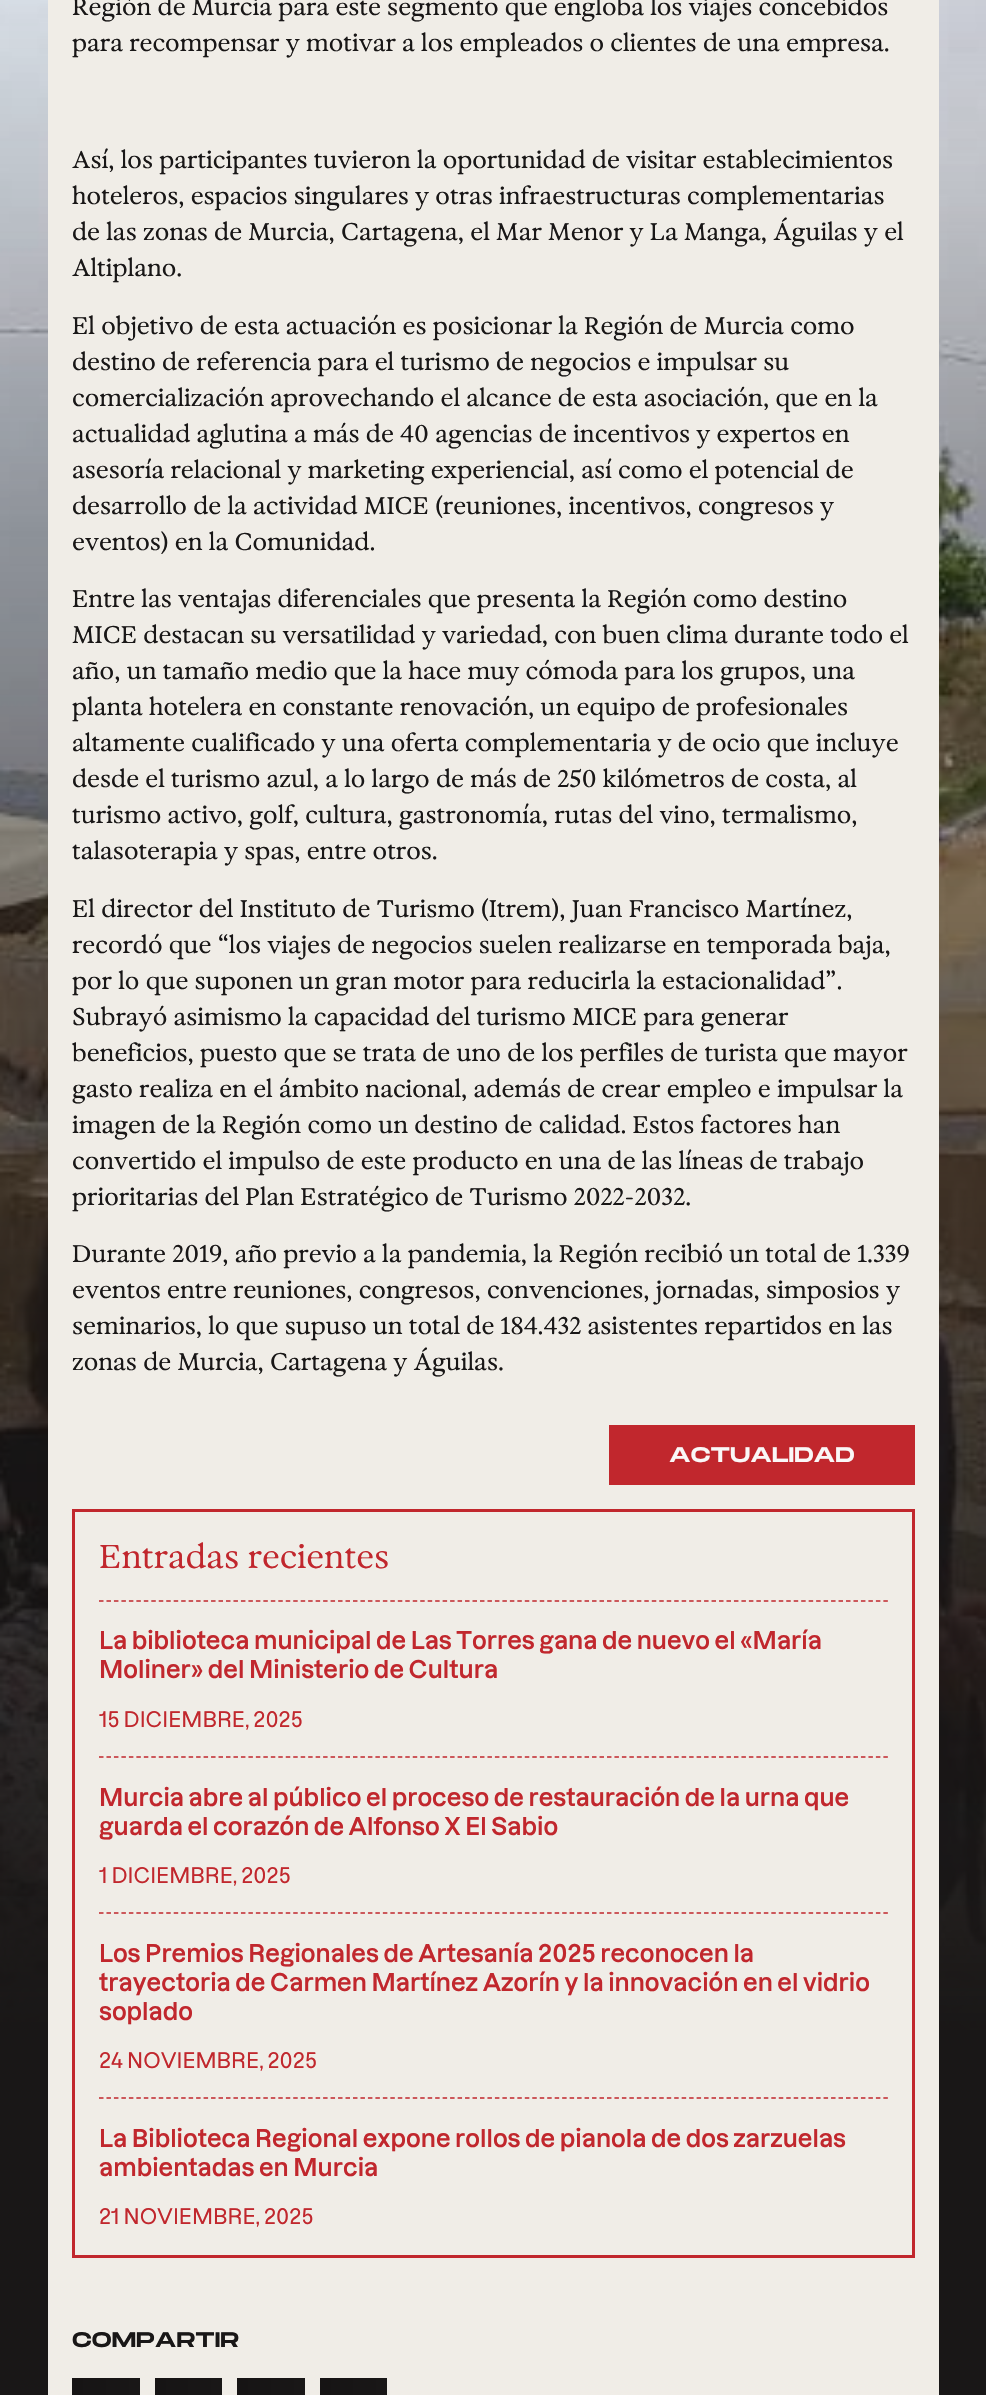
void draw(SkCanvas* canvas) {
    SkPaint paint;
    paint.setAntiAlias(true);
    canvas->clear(0xFFFFFFFF);
    canvas->drawImageRect(SkImages::DeferredFromEncodedData(SkData::MakeFromFileName("img1.png")), SkRect::MakeXYWH(0, 0, 986, 2395), SkSamplingOptions());
    paint.setColor(0xFFF0EDE7);
    canvas->drawRect(SkRect::MakeXYWH(48, 0, 891, 2395), paint);
    SkFont font1(fontMgr->matchFamilyStyle("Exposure", SkFontStyle::Normal()), 24);
    font1.setSubpixel(true);
    paint.setColor(0xFF191717);
    canvas->drawString("Región de Murcia para este segmento que engloba los viajes concebidos", 72, 15, font1, paint);
    canvas->drawString("para recompensar y motivar a los empleados o clientes de una empresa.", 72, 51, font1, paint);
    canvas->drawString("Así, los participantes tuvieron la oportunidad de visitar establecimientos", 72, 168, font1, paint);
    canvas->drawString("hoteleros, espacios singulares y otras infraestructuras complementarias", 72, 204, font1, paint);
    canvas->drawString("de las zonas de Murcia, Cartagena, el Mar Menor y La Manga, Águilas y el", 72, 240, font1, paint);
    canvas->drawString("Altiplano.", 72, 276, font1, paint);
    canvas->drawString("El objetivo de esta actuación es posicionar la Región de Murcia como", 72, 334, font1, paint);
    canvas->drawString("destino de referencia para el turismo de negocios e impulsar su", 72, 370, font1, paint);
    canvas->drawString("comercialización aprovechando el alcance de esta asociación, que en la", 72, 406, font1, paint);
    canvas->drawString("actualidad aglutina a más de 40 agencias de incentivos y expertos en", 72, 442, font1, paint);
    canvas->drawString("asesoría relacional y marketing experiencial, así como el potencial de", 72, 478, font1, paint);
    canvas->drawString("desarrollo de la actividad MICE (reuniones, incentivos, congresos y", 72, 514, font1, paint);
    canvas->drawString("eventos) en la Comunidad.", 72, 550, font1, paint);
    canvas->drawString("Entre las ventajas diferenciales que presenta la Región como destino", 72, 607, font1, paint);
    canvas->drawString("MICE destacan su versatilidad y variedad, con buen clima durante todo el", 72, 643, font1, paint);
    canvas->drawString("año, un tamaño medio que la hace muy cómoda para los grupos, una", 72, 679, font1, paint);
    canvas->drawString("planta hotelera en constante renovación, un equipo de profesionales", 72, 715, font1, paint);
    canvas->drawString("altamente cualificado y una oferta complementaria y de ocio que incluye", 72, 751, font1, paint);
    canvas->drawString("desde el turismo azul, a lo largo de más de 250 kilómetros de costa, al", 72, 787, font1, paint);
    canvas->drawString("turismo activo, golf, cultura, gastronomía, rutas del vino, termalismo,", 72, 823, font1, paint);
    canvas->drawString("talasoterapia y spas, entre otros.", 72, 859, font1, paint);
    canvas->drawString("El director del Instituto de Turismo (Itrem), Juan Francisco Martínez,", 72, 917, font1, paint);
    canvas->drawString("recordó que “los viajes de negocios suelen realizarse en temporada baja,", 72, 953, font1, paint);
    canvas->drawString("por lo que suponen un gran motor para reducirla la estacionalidad”.", 72, 989, font1, paint);
    canvas->drawString("Subrayó asimismo la capacidad del turismo MICE para generar", 72, 1025, font1, paint);
    canvas->drawString("beneficios, puesto que se trata de uno de los perfiles de turista que mayor", 72, 1061, font1, paint);
    canvas->drawString("gasto realiza en el ámbito nacional, además de crear empleo e impulsar la", 72, 1097, font1, paint);
    canvas->drawString("imagen de la Región como un destino de calidad. Estos factores han", 72, 1133, font1, paint);
    canvas->drawString("convertido el impulso de este producto en una de las líneas de trabajo", 72, 1169, font1, paint);
    canvas->drawString("prioritarias del Plan Estratégico de Turismo 2022-2032.", 72, 1205, font1, paint);
    canvas->drawString("Durante 2019, año previo a la pandemia, la Región recibió un total de 1.339", 72, 1262, font1, paint);
    canvas->drawString("eventos entre reuniones, congresos, convenciones, jornadas, simposios y", 72, 1298, font1, paint);
    canvas->drawString("seminarios, lo que supuso un total de 184.432 asistentes repartidos en las", 72, 1334, font1, paint);
    canvas->drawString("zonas de Murcia, Cartagena y Águilas.", 72, 1370, font1, paint);
    paint.setColor(0xFFC1272D);
    canvas->drawRect(SkRect::MakeXYWH(609, 1425, 306, 60), paint);
    SkFont font2(fontMgr->matchFamilyStyle("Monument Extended", SkFontStyle::Normal()), 21);
    font2.setSubpixel(true);
    paint.setColor(0xFFFAF7F7);
    canvas->drawString("ACTUALIDAD", 669, 1462, font2, paint);
    paint.setStyle(SkPaint::kStroke_Style);
    paint.setStrokeWidth(3);
    paint.setColor(0xFFC1272D);
    canvas->drawRect(SkRect::MakeXYWH(73.5f, 1510.5f, 840, 746), paint);
    SkFont font3(fontMgr->matchFamilyStyle("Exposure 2", SkFontStyle::Normal()), 33);
    font3.setSubpixel(true);
    paint.setStyle(SkPaint::kFill_Style);
    canvas->drawString("Entradas recientes", 99, 1568, font3, paint);
    paint.setStyle(SkPaint::kStroke_Style);
    paint.setStrokeWidth(1.5f);
    paint.setPathEffect(SkDashPathEffect::Make({{4.5f, 2.97f}}, 0));
    canvas->drawPath(SkPathBuilder().moveTo(99, 1601).lineTo(888, 1601).detach(), paint);
    paint.setPathEffect(nullptr);
    SkFont font4(fontMgr->matchFamilyStyle("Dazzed", SkFontStyle(600, SkFontStyle::kNormal_Width, SkFontStyle::kUpright_Slant)), 24);
    font4.setSubpixel(true);
    paint.setStyle(SkPaint::kFill_Style);
    canvas->drawString("La biblioteca municipal de Las Torres gana de nuevo el «María", 99, 1649, font4, paint);
    canvas->drawString("Moliner» del Ministerio de Cultura", 99, 1678, font4, paint);
    SkFont font5(fontMgr->matchFamilyStyle("Dazzed", SkFontStyle(500, SkFontStyle::kNormal_Width, SkFontStyle::kUpright_Slant)), 21);
    font5.setSubpixel(true);
    canvas->drawString("15 DICIEMBRE, 2025", 99, 1727, font5, paint);
    paint.setStyle(SkPaint::kStroke_Style);
    paint.setPathEffect(SkDashPathEffect::Make({{4.5f, 2.97f}}, 0));
    canvas->drawPath(SkPathBuilder().moveTo(99, 1757).lineTo(888, 1757).detach(), paint);
    paint.setPathEffect(nullptr);
    paint.setStyle(SkPaint::kFill_Style);
    canvas->drawString("Murcia abre al público el proceso de restauración de la urna que", 99, 1806, font4, paint);
    canvas->drawString("guarda el corazón de Alfonso X El Sabio", 99, 1835, font4, paint);
    canvas->drawString("1 DICIEMBRE, 2025", 99, 1883, font5, paint);
    paint.setStyle(SkPaint::kStroke_Style);
    paint.setPathEffect(SkDashPathEffect::Make({{4.5f, 2.97f}}, 0));
    canvas->drawPath(SkPathBuilder().moveTo(99, 1913).lineTo(888, 1913).detach(), paint);
    paint.setPathEffect(nullptr);
    paint.setStyle(SkPaint::kFill_Style);
    canvas->drawString("Los Premios Regionales de Artesanía 2025 reconocen la", 99, 1962, font4, paint);
    canvas->drawString("trayectoria de Carmen Martínez Azorín y la innovación en el vidrio", 99, 1991, font4, paint);
    canvas->drawString("soplado", 99, 2020, font4, paint);
    canvas->drawString("24 NOVIEMBRE, 2025", 99, 2068, font5, paint);
    paint.setStyle(SkPaint::kStroke_Style);
    paint.setPathEffect(SkDashPathEffect::Make({{4.5f, 2.97f}}, 0));
    canvas->drawPath(SkPathBuilder().moveTo(99, 2098).lineTo(888, 2098).detach(), paint);
    paint.setPathEffect(nullptr);
    paint.setStyle(SkPaint::kFill_Style);
    canvas->drawString("La Biblioteca Regional expone rollos de pianola de dos zarzuelas", 99, 2147, font4, paint);
    canvas->drawString("ambientadas en Murcia", 99, 2176, font4, paint);
    canvas->drawString("21 NOVIEMBRE, 2025", 99, 2224, font5, paint);
    paint.setColor(0xFF191717);
    canvas->drawString("COMPARTIR", 72, 2347, font2, paint);
    {
        const SkColor colors[] = {0xFF161414, 0xFF191717};
        const float stops[] = {0, 1};
        const SkPoint ends[] = {{72, 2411}, {140, 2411}};
        paint.setShader(SkGradientShader::MakeLinear(ends, colors, stops, 2, SkTileMode::kClamp));
        paint.setAlpha(255);
    }
    canvas->drawRect(SkRect::MakeXYWH(72, 2378, 68, 17), paint);
    {
        const SkColor colors[] = {0xFF161414, 0xFF191717};
        const float stops[] = {0, 1};
        const SkPoint ends[] = {{155, 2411}, {222, 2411}};
        paint.setShader(SkGradientShader::MakeLinear(ends, colors, stops, 2, SkTileMode::kClamp));
        paint.setAlpha(255);
    }
    canvas->drawRect(SkRect::MakeXYWH(155, 2378, 67, 17), paint);
    {
        const SkColor colors[] = {0xFF161414, 0xFF191717};
        const float stops[] = {0, 1};
        const SkPoint ends[] = {{237, 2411}, {305, 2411}};
        paint.setShader(SkGradientShader::MakeLinear(ends, colors, stops, 2, SkTileMode::kClamp));
        paint.setAlpha(255);
    }
    canvas->drawRect(SkRect::MakeXYWH(237, 2378, 68, 17), paint);
    {
        const SkColor colors[] = {0xFF161414, 0xFF191717};
        const float stops[] = {0, 1};
        const SkPoint ends[] = {{320, 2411}, {387, 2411}};
        paint.setShader(SkGradientShader::MakeLinear(ends, colors, stops, 2, SkTileMode::kClamp));
        paint.setAlpha(255);
    }
    canvas->drawRect(SkRect::MakeXYWH(320, 2378, 67, 17), paint);
}
